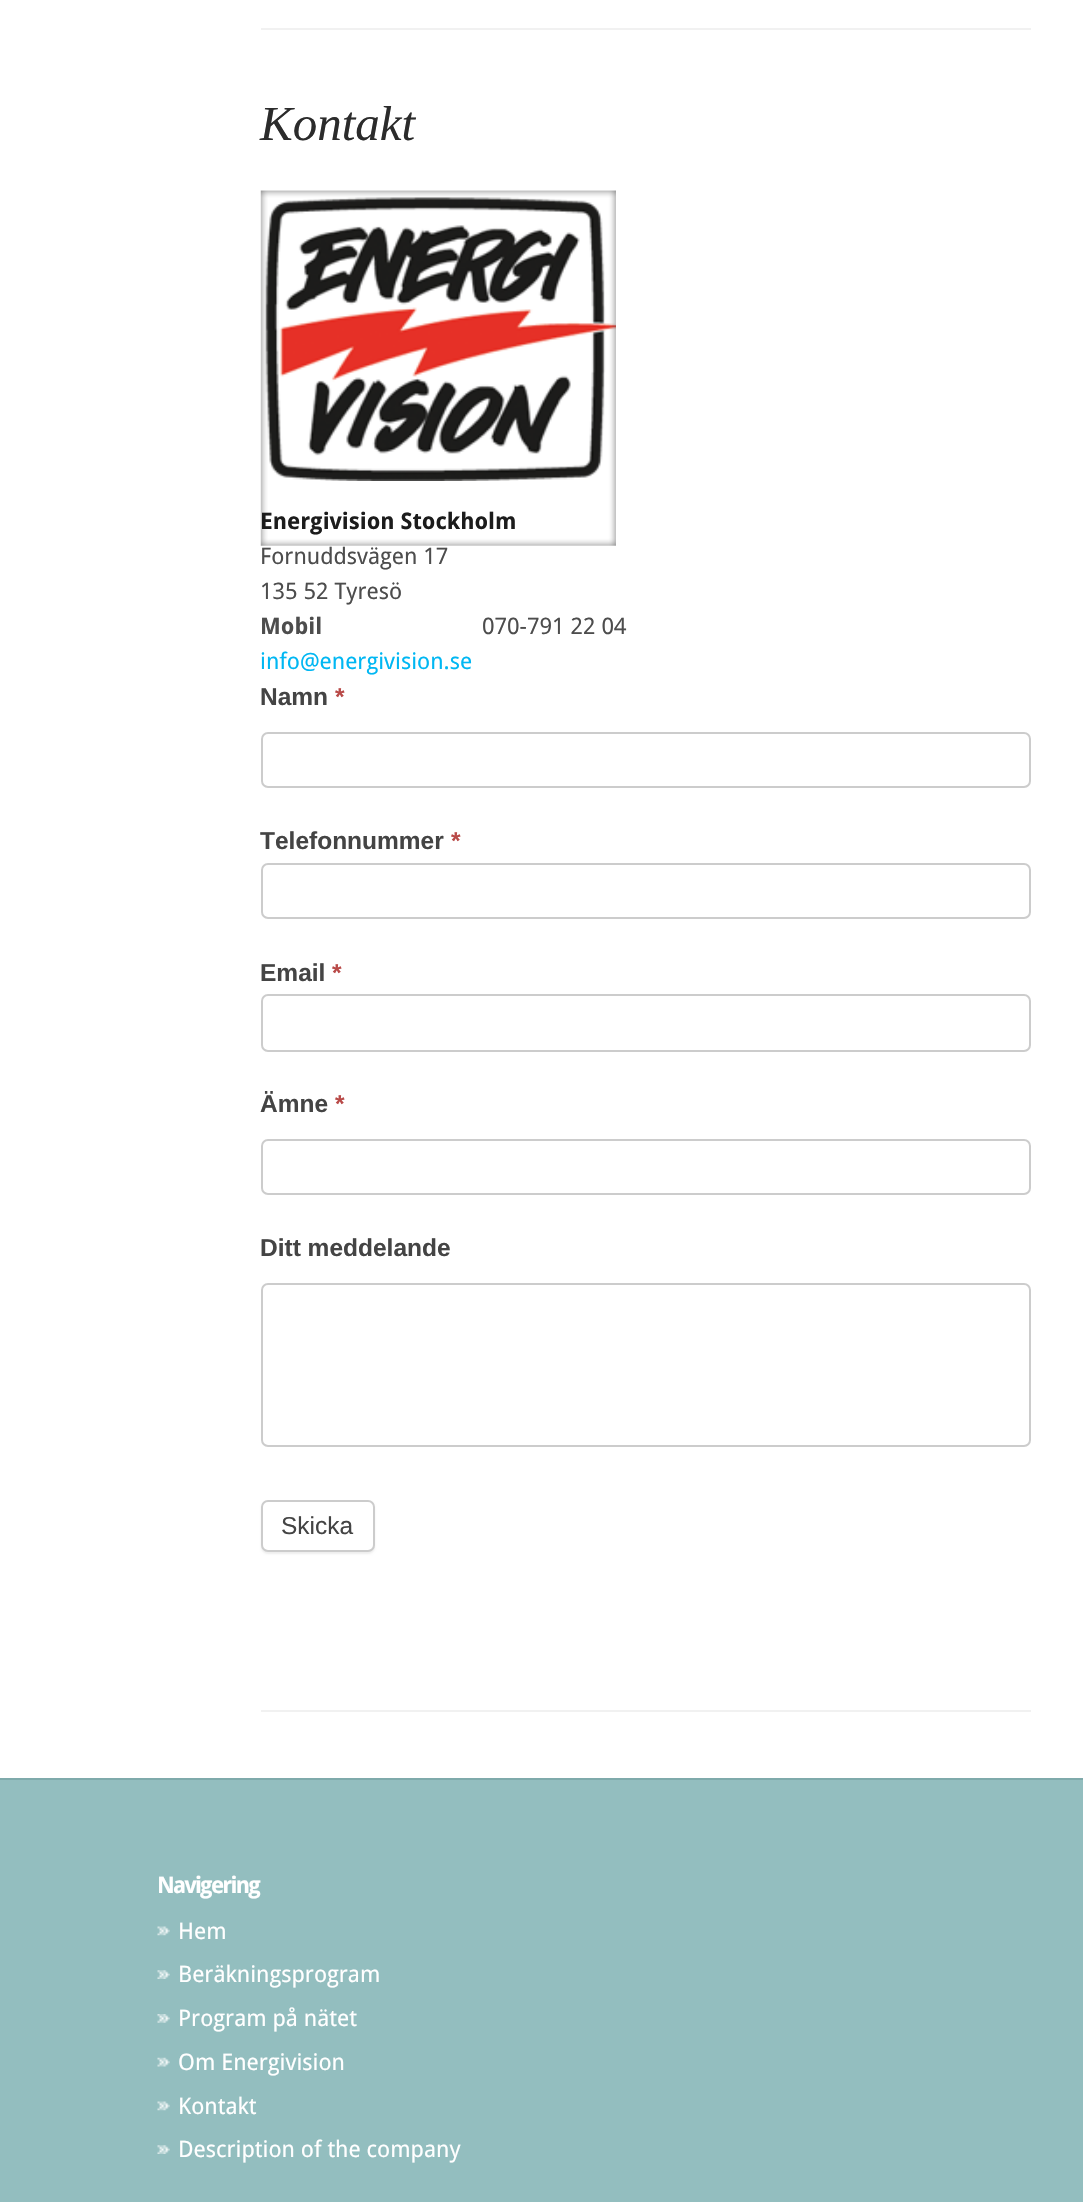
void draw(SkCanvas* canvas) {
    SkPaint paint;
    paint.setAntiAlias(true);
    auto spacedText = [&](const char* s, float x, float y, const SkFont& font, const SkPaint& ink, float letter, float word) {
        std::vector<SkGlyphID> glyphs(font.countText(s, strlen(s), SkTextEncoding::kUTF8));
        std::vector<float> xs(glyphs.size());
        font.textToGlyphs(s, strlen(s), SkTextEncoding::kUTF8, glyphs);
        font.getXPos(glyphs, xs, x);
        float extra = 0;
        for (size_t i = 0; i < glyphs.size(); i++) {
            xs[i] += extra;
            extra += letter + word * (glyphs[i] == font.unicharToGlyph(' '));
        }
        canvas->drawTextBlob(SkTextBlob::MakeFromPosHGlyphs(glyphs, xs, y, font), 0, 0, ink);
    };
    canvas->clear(0xFF93BEBF);
    paint.setColor(0xFFFFFFFF);
    canvas->drawRect(SkRect::MakeXYWH(0, 0, 1083, 1778), paint);
    paint.setColor(0xFFF1F1F1);
    canvas->drawRect(SkRect::MakeXYWH(261, 28, 770, 2), paint);
    canvas->drawRect(SkRect::MakeXYWH(261, 1710, 770, 2), paint);
    SkFont font1(fontMgr->matchFamilyStyle("Liberation Serif", SkFontStyle::Italic()), 49);
    font1.setSubpixel(true);
    paint.setColor(0xFF2B2B2B);
    canvas->drawString("Kontakt", 260, 140, font1, paint);
    canvas->drawImageRect(SkImages::DeferredFromEncodedData(SkData::MakeFromFileName("img2.png")), SkRect::MakeXYWH(265, 197, 351, 284), SkSamplingOptions());
    SkFont font2(fontMgr->matchFamilyStyle("Droid Sans", SkFontStyle::Bold()), 22.75f);
    font2.setSubpixel(true);
    paint.setColor(0xFF1C1C1C);
    canvas->drawString("Energivision Stockholm", 260, 529, font2, paint);
    canvas->drawImageRect(SkImages::DeferredFromEncodedData(SkData::MakeFromFileName("img1.png")), SkRect::MakeXYWH(260, 190, 356, 356), SkSamplingOptions());
    SkFont font3(fontMgr->matchFamilyStyle("Droid Sans", SkFontStyle::Normal()), 22.75f);
    font3.setSubpixel(true);
    paint.setColor(0xFF4D4D4D);
    canvas->drawString("Fornuddsvägen 17", 260, 564, font3, paint);
    canvas->drawString("135 52 Tyresö", 260, 599, font3, paint);
    canvas->drawString("Mobil", 260, 634, font2, paint);
    canvas->drawString("070-791 22 04", 482, 634, font3, paint);
    paint.setColor(0xFF00B7F3);
    canvas->drawString("info@energivision.se", 260, 669, font3, paint);
    SkFont font4(fontMgr->matchFamilyStyle("Liberation Sans", SkFontStyle::Bold()), 24.5f);
    font4.setSubpixel(true);
    paint.setColor(0xFF444444);
    canvas->drawString("Namn", 260, 705, font4, paint);
    paint.setColor(0xFFB94A48);
    canvas->drawString("*", 335, 705, font4, paint);
    paint.setStyle(SkPaint::kStroke_Style);
    paint.setStrokeWidth(2);
    paint.setColor(0xFFCCCCCC);
    canvas->drawRoundRect(SkRect::MakeXYWH(262, 733, 768, 54), 6, 6, paint);
    paint.setStyle(SkPaint::kFill_Style);
    paint.setColor(0xFF444444);
    canvas->drawString("Telefonnummer", 260, 849, font4, paint);
    paint.setColor(0xFFB94A48);
    canvas->drawString("*", 451, 849, font4, paint);
    paint.setStyle(SkPaint::kStroke_Style);
    paint.setColor(0xFFCCCCCC);
    canvas->drawRoundRect(SkRect::MakeXYWH(262, 864, 768, 54), 6, 6, paint);
    paint.setStyle(SkPaint::kFill_Style);
    paint.setColor(0xFF444444);
    canvas->drawString("Email", 260, 981, font4, paint);
    paint.setColor(0xFFB94A48);
    canvas->drawString("*", 332, 981, font4, paint);
    paint.setStyle(SkPaint::kStroke_Style);
    paint.setColor(0xFFCCCCCC);
    canvas->drawRoundRect(SkRect::MakeXYWH(262, 995, 768, 56), 6, 6, paint);
    paint.setStyle(SkPaint::kFill_Style);
    paint.setColor(0xFF444444);
    canvas->drawString("Ämne", 260, 1112, font4, paint);
    paint.setColor(0xFFB94A48);
    canvas->drawString("*", 335, 1112, font4, paint);
    paint.setStyle(SkPaint::kStroke_Style);
    paint.setColor(0xFFCCCCCC);
    canvas->drawRoundRect(SkRect::MakeXYWH(262, 1140, 768, 54), 6, 6, paint);
    paint.setStyle(SkPaint::kFill_Style);
    paint.setColor(0xFF444444);
    canvas->drawString("Ditt meddelande", 260, 1256, font4, paint);
    paint.setStyle(SkPaint::kStroke_Style);
    paint.setColor(0xFFCCCCCC);
    canvas->drawRoundRect(SkRect::MakeXYWH(262, 1284, 768, 162), 6, 6, paint);
    paint.setStyle(SkPaint::kFill_Style);
    paint.setColor(0xFFEEEEEE);
    paint.setMaskFilter(SkMaskFilter::MakeBlur(kNormal_SkBlurStyle, 1));
    canvas->drawRoundRect(SkRect::MakeXYWH(261, 1502, 114, 52), 7, 7, paint);
    paint.setMaskFilter(nullptr);
    paint.setColor(0xFFFFFFFF);
    canvas->drawRoundRect(SkRect::MakeXYWH(262, 1501, 112, 50), 6, 6, paint);
    paint.setStyle(SkPaint::kStroke_Style);
    paint.setColor(0xFFCCCCCC);
    canvas->drawRoundRect(SkRect::MakeXYWH(262, 1501, 112, 50), 6, 6, paint);
    SkFont font5(fontMgr->matchFamilyStyle("Liberation Sans", SkFontStyle::Normal()), 24.5f);
    font5.setSubpixel(true);
    paint.setStyle(SkPaint::kFill_Style);
    paint.setColor(0xFF444444);
    canvas->drawString("Skicka", 281, 1534, font5, paint);
    paint.setColor(0xFF7FAAAB);
    canvas->drawRect(SkRect::MakeXYWH(0, 1778, 1083, 2), paint);
    paint.setColor(0xFFFFFFFF);
    spacedText("Navigering", 157, 1893, font2, paint, -1.75f, 0);
    canvas->drawImageRect(SkImages::DeferredFromEncodedData(SkData::MakeFromFileName("img3.png")), SkRect::MakeXYWH(157, 1926, 13, 10), SkSamplingOptions());
    canvas->drawString("Hem", 178, 1939, font3, paint);
    canvas->drawImageRect(SkImages::DeferredFromEncodedData(SkData::MakeFromFileName("img4.png")), SkRect::MakeXYWH(157, 1970, 13, 9), SkSamplingOptions());
    canvas->drawString("Beräkningsprogram", 178, 1982, font3, paint);
    canvas->drawImageRect(SkImages::DeferredFromEncodedData(SkData::MakeFromFileName("img5.png")), SkRect::MakeXYWH(157, 2014, 13, 9), SkSamplingOptions());
    canvas->drawString("Program på nätet", 178, 2026, font3, paint);
    canvas->drawImageRect(SkImages::DeferredFromEncodedData(SkData::MakeFromFileName("img6.png")), SkRect::MakeXYWH(157, 2057, 13, 10), SkSamplingOptions());
    canvas->drawString("Om Energivision", 178, 2070, font3, paint);
    canvas->drawImageRect(SkImages::DeferredFromEncodedData(SkData::MakeFromFileName("img3.png")), SkRect::MakeXYWH(157, 2101, 13, 10), SkSamplingOptions());
    canvas->drawString("Kontakt", 178, 2114, font3, paint);
    canvas->drawImageRect(SkImages::DeferredFromEncodedData(SkData::MakeFromFileName("img4.png")), SkRect::MakeXYWH(157, 2145, 13, 9), SkSamplingOptions());
    canvas->drawString("Description of the company", 178, 2157, font3, paint);
}
